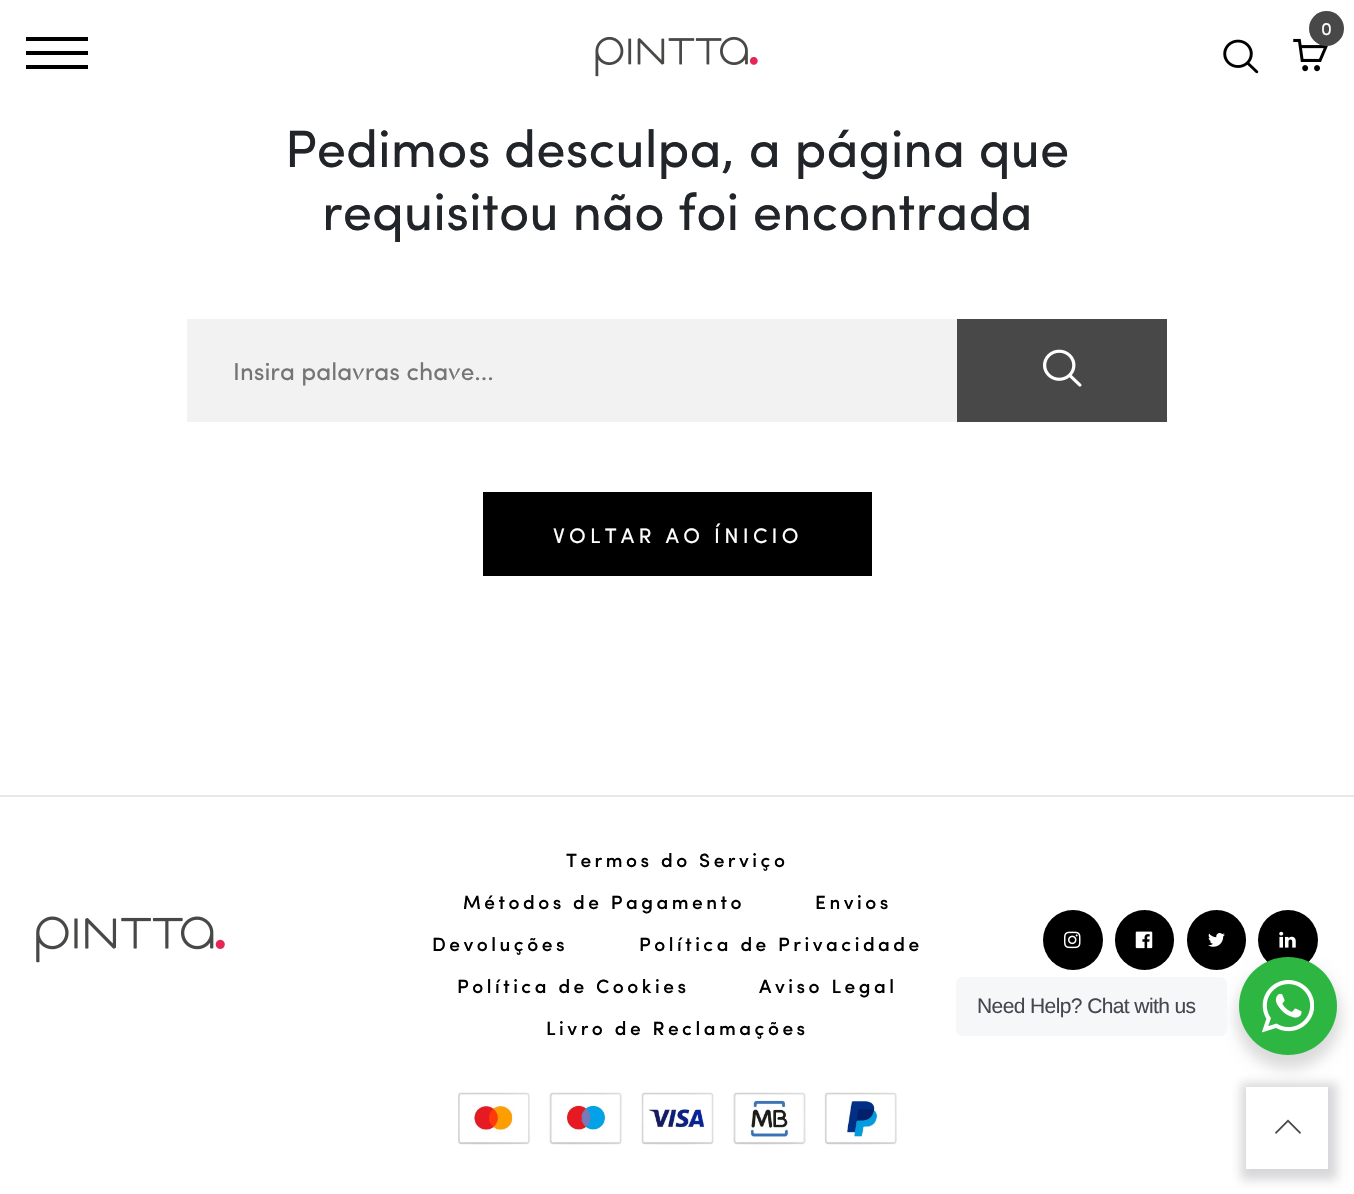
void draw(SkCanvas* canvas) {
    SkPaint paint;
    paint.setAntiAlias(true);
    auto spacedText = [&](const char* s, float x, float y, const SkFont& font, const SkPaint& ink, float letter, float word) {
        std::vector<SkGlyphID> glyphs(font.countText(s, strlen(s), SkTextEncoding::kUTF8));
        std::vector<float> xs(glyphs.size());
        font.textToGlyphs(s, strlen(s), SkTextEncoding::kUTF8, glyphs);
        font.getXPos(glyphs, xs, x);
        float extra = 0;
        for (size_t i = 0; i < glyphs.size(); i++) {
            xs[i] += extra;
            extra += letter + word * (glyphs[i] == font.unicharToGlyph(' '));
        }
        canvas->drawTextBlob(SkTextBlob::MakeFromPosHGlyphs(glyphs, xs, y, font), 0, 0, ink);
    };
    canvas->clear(0xFFFFFFFF);
    canvas->drawImageRect(SkImages::DeferredFromEncodedData(SkData::MakeFromFileName("img1.png")), SkRect::MakeXYWH(1293, 38, 36, 34), SkSamplingOptions());
    paint.setColor(0xFF484848);
    canvas->drawCircle(1326.5f, 28.5f, 17.5f, paint);
    SkFont font1(fontMgr->matchFamilyStyle("Sofia", SkFontStyle::Normal()), 18);
    font1.setSubpixel(true);
    paint.setColor(0xFFFFFFFF);
    canvas->drawString("0", 1321, 35, font1, paint);
    canvas->drawImageRect(SkImages::DeferredFromEncodedData(SkData::MakeFromFileName("img2.png")), SkRect::MakeXYWH(1223, 39, 36, 35), SkSamplingOptions());
    paint.setColor(0xFF000000);
    canvas->drawRect(SkRect::MakeXYWH(26, 37, 62, 4), paint);
    canvas->drawRect(SkRect::MakeXYWH(26, 51, 62, 4), paint);
    canvas->drawRect(SkRect::MakeXYWH(26, 65, 62, 4), paint);
    canvas->drawImageRect(SkImages::DeferredFromEncodedData(SkData::MakeFromFileName("img3.png")), SkRect::MakeXYWH(595, 36, 163, 41), SkSamplingOptions());
    SkFont font2(fontMgr->matchFamilyStyle("Sofia", SkFontStyle::Normal()), 52.5f);
    font2.setSubpixel(true);
    paint.setColor(0xFF212529);
    canvas->drawString("Pedimos desculpa, a página que", 285, 167, font2, paint);
    canvas->drawString("requisitou não foi encontrada", 322, 230, font2, paint);
    paint.setColor(0xFFF2F2F2);
    canvas->drawRect(SkRect::MakeXYWH(187, 319, 770, 103), paint);
    SkFont font3(fontMgr->matchFamilyStyle("Sofia", SkFontStyle::Normal()), 24.5f);
    font3.setSubpixel(true);
    paint.setColor(0xFF757575);
    canvas->drawString("Insira palavras chave...", 233, 380, font3, paint);
    paint.setColor(0xFF484848);
    canvas->drawRect(SkRect::MakeXYWH(957, 319, 210, 103), paint);
    canvas->drawImageRect(SkImages::DeferredFromEncodedData(SkData::MakeFromFileName("img4.png")), SkRect::MakeXYWH(1043, 349, 39, 38), SkSamplingOptions());
    paint.setColor(0xFF000000);
    canvas->drawRect(SkRect::MakeXYWH(483, 492, 389, 84), paint);
    SkFont font4(fontMgr->matchFamilyStyle("Sofia", SkFontStyle::Normal()), 21);
    font4.setSubpixel(true);
    paint.setColor(0xFFFFFFFF);
    spacedText("VOLTAR AO ÍNICIO", 553, 543, font4, paint, 4.25f, 0);
    paint.setColor(0xFFE8E8E8);
    canvas->drawRect(SkRect::MakeXYWH(0, 795, 1354, 2), paint);
    canvas->drawImageRect(SkImages::DeferredFromEncodedData(SkData::MakeFromFileName("img5.png")), SkRect::MakeXYWH(36, 916, 189, 47), SkSamplingOptions());
    SkFont font5(fontMgr->matchFamilyStyle("Sofia", SkFontStyle(500, SkFontStyle::kNormal_Width, SkFontStyle::kUpright_Slant)), 19.25f);
    font5.setSubpixel(true);
    paint.setColor(0xFF000000);
    spacedText("Termos do Serviço", 566, 867, font5, paint, 3.5f, 0);
    spacedText("Métodos de Pagamento", 463, 909, font5, paint, 3.5f, 0);
    spacedText("Envios", 815, 909, font5, paint, 3.5f, 0);
    spacedText("Devoluções", 432, 951, font5, paint, 3.5f, 0);
    spacedText("Política de Privacidade", 639, 951, font5, paint, 3.5f, 0);
    spacedText("Política de Cookies", 457, 993, font5, paint, 3.5f, 0);
    spacedText("Aviso Legal", 759, 993, font5, paint, 3.5f, 0);
    spacedText("Livro de Reclamações", 546, 1035, font5, paint, 3.5f, 0);
    canvas->drawCircle(1073, 940, 30, paint);
    canvas->drawImageRect(SkImages::DeferredFromEncodedData(SkData::MakeFromFileName("img6.png")), SkRect::MakeXYWH(1064, 931, 17, 18), SkSamplingOptions());
    canvas->drawRoundRect(SkRect::MakeXYWH(1115, 910, 59, 60), 29.5f, 29.5f, paint);
    canvas->drawImageRect(SkImages::DeferredFromEncodedData(SkData::MakeFromFileName("img7.png")), SkRect::MakeXYWH(1135, 931, 18, 18), SkSamplingOptions());
    canvas->drawRoundRect(SkRect::MakeXYWH(1187, 910, 59, 60), 29.5f, 29.5f, paint);
    canvas->drawImageRect(SkImages::DeferredFromEncodedData(SkData::MakeFromFileName("img8.png")), SkRect::MakeXYWH(1208, 933, 17, 14), SkSamplingOptions());
    canvas->drawCircle(1288, 940, 30, paint);
    canvas->drawImageRect(SkImages::DeferredFromEncodedData(SkData::MakeFromFileName("img9.png")), SkRect::MakeXYWH(1279, 931, 17, 17), SkSamplingOptions());
    canvas->drawImageRect(SkImages::DeferredFromEncodedData(SkData::MakeFromFileName("img10.png")), SkRect::MakeXYWH(458, 1092, 439, 53), SkSamplingOptions());
    canvas->save();
    canvas->clipPath(SkPathBuilder(SkPathFillType::kEvenOdd).moveTo(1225, 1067).lineTo(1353, 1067).lineTo(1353, 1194).lineTo(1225, 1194).close().moveTo(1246, 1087).lineTo(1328, 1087).lineTo(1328, 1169).lineTo(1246, 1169).close().detach(), true);
    paint.setColor(0x33353944);
    paint.setMaskFilter(SkMaskFilter::MakeBlur(kNormal_SkBlurStyle, 5));
    canvas->drawRect(SkRect::MakeXYWH(1241, 1083, 96, 97), paint);
    paint.setMaskFilter(nullptr);
    canvas->restore();
    paint.setColor(0xFF484848);
    canvas->drawPath(SkPathBuilder().moveTo(1301, 1132.5f).lineTo(1300, 1134).lineTo(1288, 1122).lineTo(1276, 1134).lineTo(1275, 1132.5f).lineTo(1288, 1119.5f).close().detach(), paint);
    paint.setColor(0x24000000);
    paint.setMaskFilter(SkMaskFilter::MakeBlur(kNormal_SkBlurStyle, 7));
    canvas->drawRoundRect(SkRect::MakeXYWH(1236, 964, 105, 105), 52.5f, 52.5f, paint);
    paint.setMaskFilter(nullptr);
    paint.setColor(0xFFF5F7F9);
    canvas->drawRoundRect(SkRect::MakeXYWH(956, 977, 271, 59), 7, 7, paint);
    SkFont font6(fontMgr->matchFamilyStyle("Liberation Sans", SkFontStyle::Normal()), 21);
    font6.setSubpixel(true);
    paint.setColor(0xFF43474E);
    spacedText("Need Help? Chat with us", 977, 1013, font6, paint, -0.6f, 0);
    paint.setColor(0xFF2DB742);
    canvas->drawCircle(1288, 1006, 49, paint);
    canvas->drawImageRect(SkImages::DeferredFromEncodedData(SkData::MakeFromFileName("img11.png")), SkRect::MakeXYWH(1262, 980, 52, 53), SkSamplingOptions());
}
